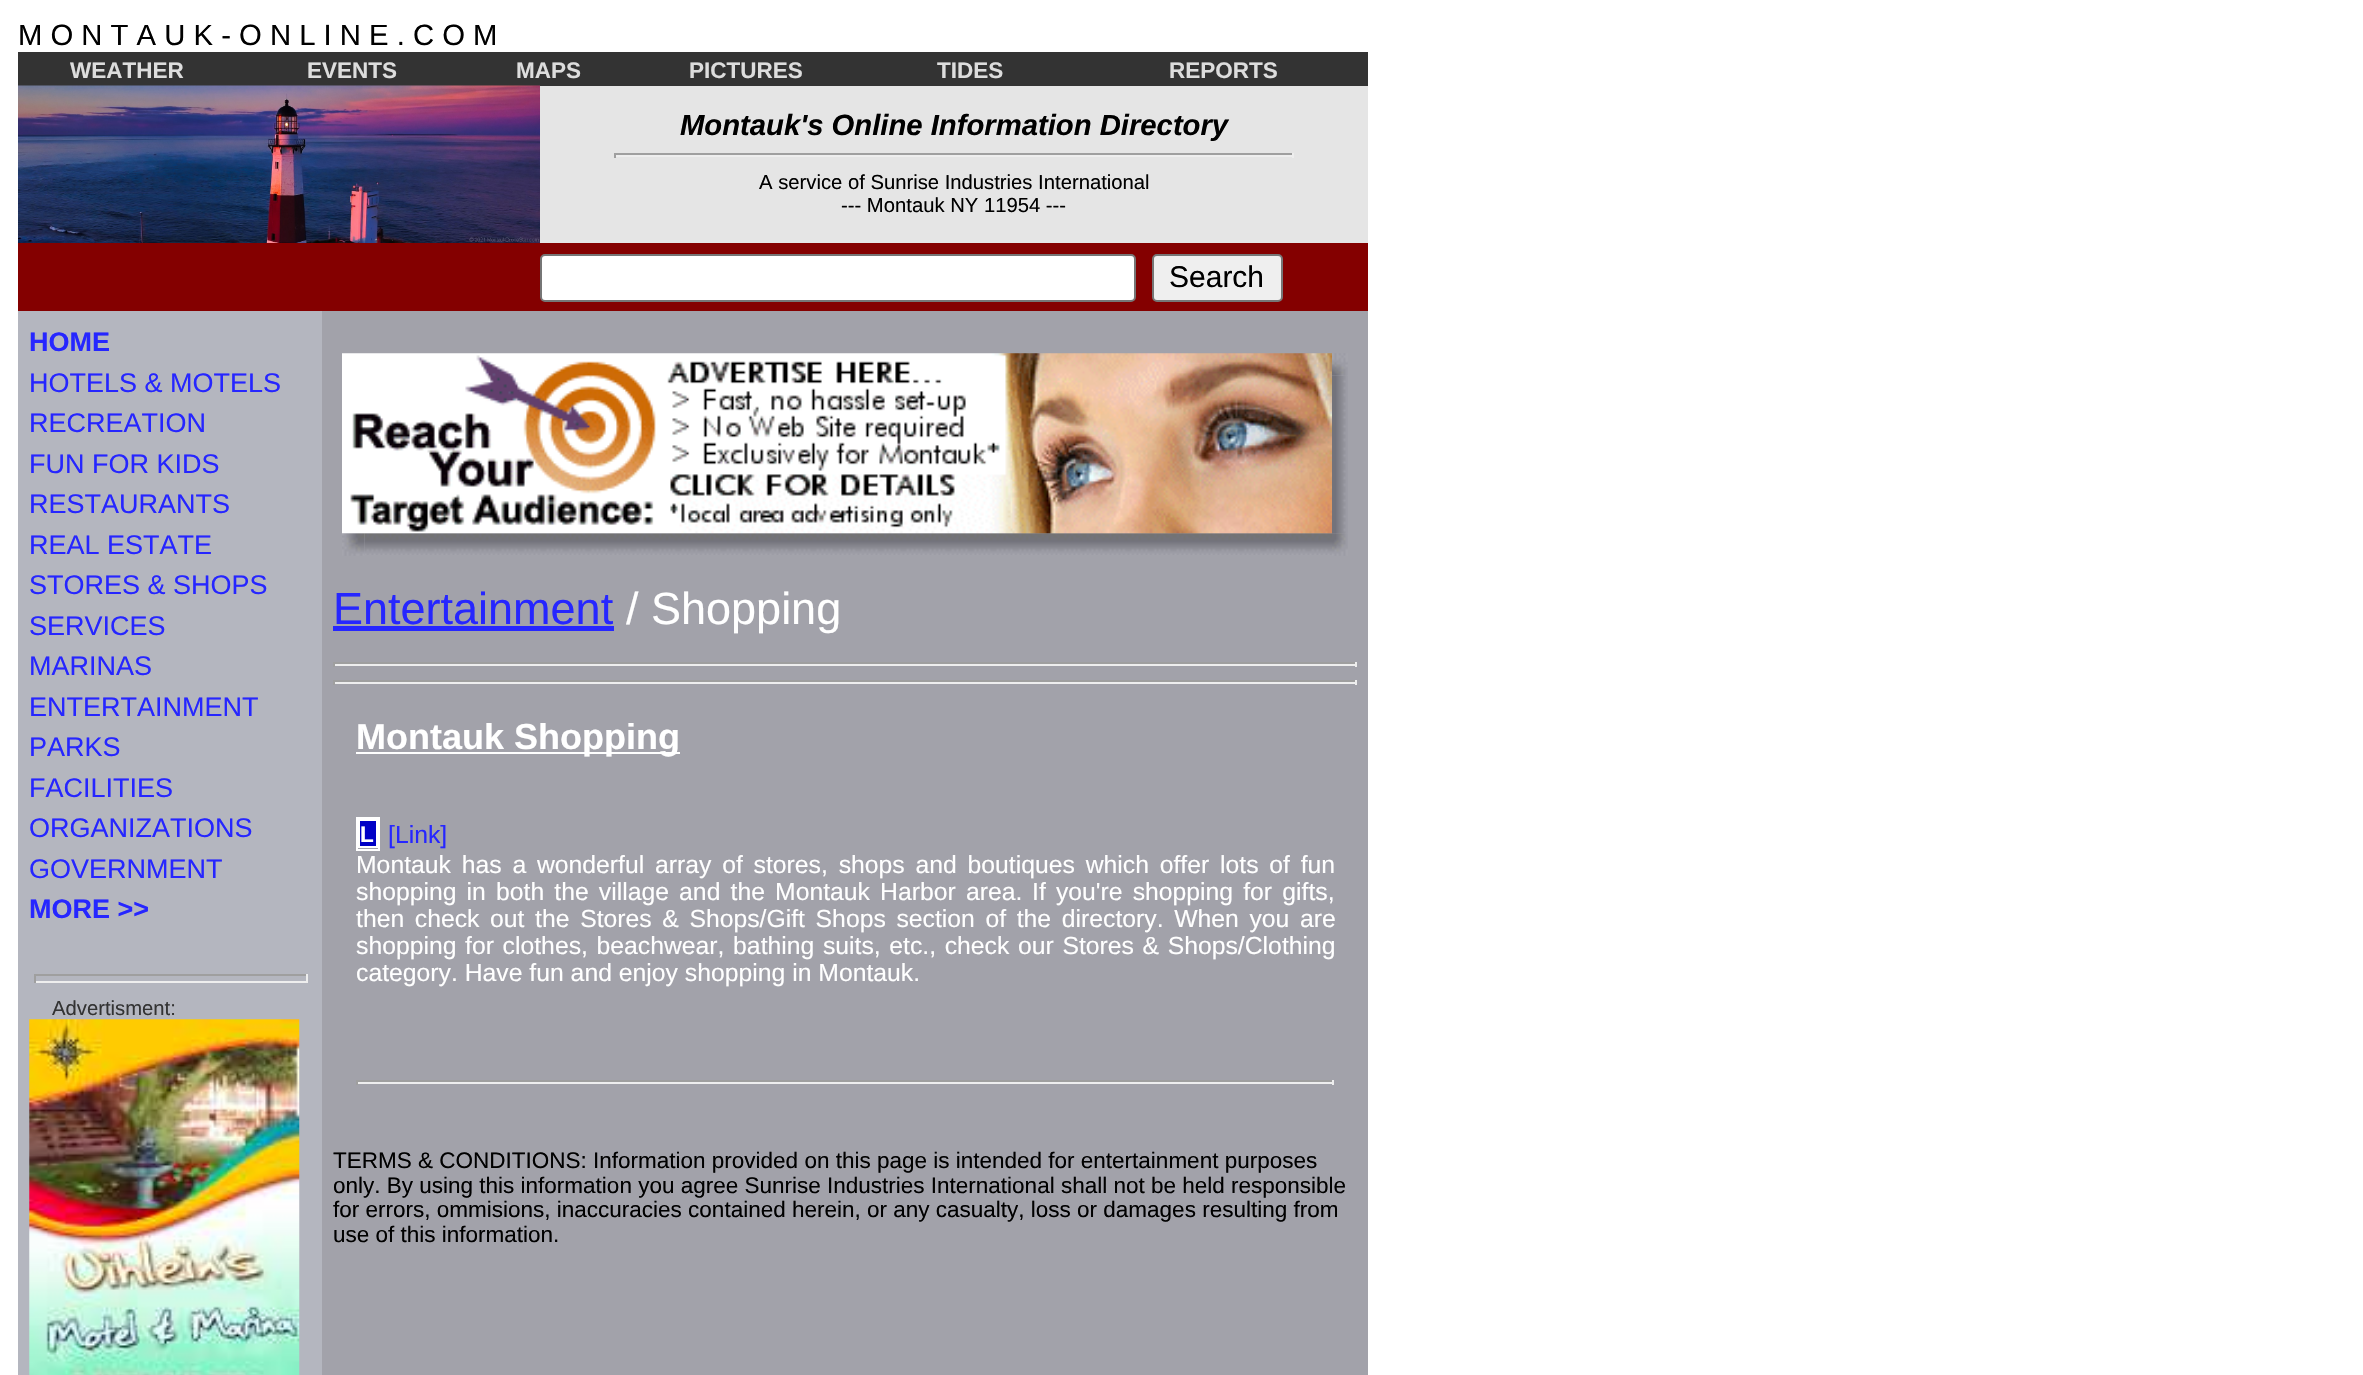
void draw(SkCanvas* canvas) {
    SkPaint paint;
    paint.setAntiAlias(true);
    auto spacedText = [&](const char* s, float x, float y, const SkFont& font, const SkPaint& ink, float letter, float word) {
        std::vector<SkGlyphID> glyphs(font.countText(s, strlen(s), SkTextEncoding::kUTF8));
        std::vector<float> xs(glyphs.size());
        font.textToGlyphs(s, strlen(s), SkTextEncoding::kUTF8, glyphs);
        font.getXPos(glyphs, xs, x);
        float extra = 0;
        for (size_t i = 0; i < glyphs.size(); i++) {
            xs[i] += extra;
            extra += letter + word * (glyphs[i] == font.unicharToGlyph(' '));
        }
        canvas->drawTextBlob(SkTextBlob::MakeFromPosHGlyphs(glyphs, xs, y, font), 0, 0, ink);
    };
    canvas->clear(0xFFFFFFFF);
    SkFont font1(fontMgr->matchFamilyStyle("Liberation Sans", SkFontStyle::Normal()), 29.25f);
    font1.setSubpixel(true);
    paint.setColor(0xFF000000);
    canvas->drawString("M O N T A U K - O N L I N E . C O M", 18, 45, font1, paint);
    paint.setColor(0xFF333333);
    canvas->drawRect(SkRect::MakeXYWH(18, 52, 1350, 34), paint);
    SkFont font2(fontMgr->matchFamilyStyle("Liberation Sans", SkFontStyle::Bold()), 22.5f);
    font2.setSubpixel(true);
    paint.setColor(0xFFDDDDDD);
    canvas->drawString("WEATHER", 70, 78, font2, paint);
    canvas->drawString("EVENTS", 307, 78, font2, paint);
    canvas->drawString("MAPS", 516, 78, font2, paint);
    canvas->drawString("PICTURES", 689, 78, font2, paint);
    canvas->drawString("TIDES", 937, 78, font2, paint);
    canvas->drawString("REPORTS", 1169, 78, font2, paint);
    canvas->drawImageRect(SkImages::DeferredFromEncodedData(SkData::MakeFromFileName("img1.png")), SkRect::MakeXYWH(18, 85, 522, 158), SkSamplingOptions());
    paint.setColor(0xFFE5E5E5);
    canvas->drawRect(SkRect::MakeXYWH(540, 86, 828, 157), paint);
    SkFont font3(fontMgr->matchFamilyStyle("Liberation Sans", SkFontStyle::BoldItalic()), 29.25f);
    font3.setSubpixel(true);
    paint.setColor(0xFF000000);
    canvas->drawString("Montauk's Online Information Directory", 680, 135, font3, paint);
    paint.setColor(0xFF9F9F9F);
    canvas->drawRect(SkRect::MakeXYWH(614, 153, 680, 2), paint);
    paint.setColor(0xFFEEEEEE);
    canvas->drawRect(SkRect::MakeXYWH(1292, 153, 2, 5), paint);
    canvas->drawRect(SkRect::MakeXYWH(614, 155, 680, 2), paint);
    paint.setColor(0xFF9F9F9F);
    canvas->drawRect(SkRect::MakeXYWH(614, 153, 2, 5), paint);
    SkFont font4(fontMgr->matchFamilyStyle("Liberation Sans", SkFontStyle::Normal()), 20.25f);
    font4.setSubpixel(true);
    paint.setColor(0xFF000000);
    canvas->drawString("A service of Sunrise Industries International", 759, 189, font4, paint);
    canvas->drawString("--- Montauk NY 11954 ---", 841, 212, font4, paint);
    paint.setColor(0xFF840000);
    canvas->drawRect(SkRect::MakeXYWH(18, 243, 1350, 68), paint);
    paint.setColor(0xFFFFFFFF);
    canvas->drawRoundRect(SkRect::MakeXYWH(541, 255, 594, 46), 4, 4, paint);
    paint.setStyle(SkPaint::kStroke_Style);
    paint.setStrokeWidth(2);
    paint.setColor(0xFF767676);
    canvas->drawRoundRect(SkRect::MakeXYWH(541, 255, 594, 46), 4, 4, paint);
    paint.setStyle(SkPaint::kFill_Style);
    paint.setColor(0xFFEFEFEF);
    canvas->drawRoundRect(SkRect::MakeXYWH(1153, 255, 129, 46), 4, 4, paint);
    paint.setStyle(SkPaint::kStroke_Style);
    paint.setColor(0xFF767676);
    canvas->drawRoundRect(SkRect::MakeXYWH(1153, 255, 129, 46), 4, 4, paint);
    SkFont font5(fontMgr->matchFamilyStyle("Liberation Sans", SkFontStyle::Normal()), 30);
    font5.setSubpixel(true);
    paint.setStyle(SkPaint::kFill_Style);
    paint.setColor(0xFF000000);
    canvas->drawString("Search", 1169, 287, font5, paint);
    paint.setColor(0xFFB4B6BF);
    canvas->drawRect(SkRect::MakeXYWH(18, 311, 304, 1064), paint);
    SkFont font6(fontMgr->matchFamilyStyle("Liberation Sans", SkFontStyle::Bold()), 27);
    font6.setSubpixel(true);
    paint.setColor(0xFF2626FF);
    canvas->drawString("HOME", 29, 351, font6, paint);
    SkFont font7(fontMgr->matchFamilyStyle("Liberation Sans", SkFontStyle::Normal()), 27);
    font7.setSubpixel(true);
    canvas->drawString("HOTELS & MOTELS", 29, 392, font7, paint);
    canvas->drawString("RECREATION", 29, 432, font7, paint);
    canvas->drawString("FUN FOR KIDS", 29, 473, font7, paint);
    canvas->drawString("RESTAURANTS", 29, 513, font7, paint);
    canvas->drawString("REAL ESTATE", 29, 554, font7, paint);
    canvas->drawString("STORES & SHOPS", 29, 594, font7, paint);
    canvas->drawString("SERVICES", 29, 635, font7, paint);
    canvas->drawString("MARINAS", 29, 675, font7, paint);
    canvas->drawString("ENTERTAINMENT", 29, 716, font7, paint);
    canvas->drawString("PARKS", 29, 756, font7, paint);
    canvas->drawString("FACILITIES", 29, 797, font7, paint);
    canvas->drawString("ORGANIZATIONS", 29, 837, font7, paint);
    canvas->drawString("GOVERNMENT", 29, 878, font7, paint);
    canvas->drawString("MORE >>", 29, 918, font6, paint);
    paint.setColor(0xFF9F9F9F);
    canvas->drawRect(SkRect::MakeXYWH(34, 974, 274, 2), paint);
    paint.setColor(0xFFEEEEEE);
    canvas->drawRect(SkRect::MakeXYWH(306, 974, 2, 9), paint);
    canvas->drawRect(SkRect::MakeXYWH(34, 981, 274, 2), paint);
    paint.setColor(0xFF9F9F9F);
    canvas->drawRect(SkRect::MakeXYWH(34, 974, 2, 9), paint);
    paint.setColor(0xFF333333);
    canvas->drawString("Advertisment:", 52, 1015, font4, paint);
    canvas->drawImageRect(SkImages::DeferredFromEncodedData(SkData::MakeFromFileName("img2.png")), SkRect::MakeXYWH(29, 1019, 271, 356), SkSamplingOptions());
    paint.setColor(0xFFA2A2AA);
    canvas->drawRect(SkRect::MakeXYWH(322, 311, 1046, 1064), paint);
    canvas->drawImageRect(SkImages::DeferredFromEncodedData(SkData::MakeFromFileName("img6.png")), SkRect::MakeXYWH(342, 533, 23, 23), SkSamplingOptions());
    canvas->drawImageRect(SkImages::DeferredFromEncodedData(SkData::MakeFromFileName("img7.png")), SkRect::MakeXYWH(364, 533, 968, 22), SkSamplingOptions());
    canvas->drawImageRect(SkImages::DeferredFromEncodedData(SkData::MakeFromFileName("img3.png")), SkRect::MakeXYWH(342, 353, 990, 181), SkSamplingOptions());
    canvas->drawImageRect(SkImages::DeferredFromEncodedData(SkData::MakeFromFileName("img4.png")), SkRect::MakeXYWH(1332, 353, 16, 23), SkSamplingOptions());
    canvas->drawImageRect(SkImages::DeferredFromEncodedData(SkData::MakeFromFileName("img5.png")), SkRect::MakeXYWH(1332, 376, 16, 158), SkSamplingOptions());
    canvas->drawImageRect(SkImages::DeferredFromEncodedData(SkData::MakeFromFileName("img8.png")), SkRect::MakeXYWH(1332, 533, 16, 23), SkSamplingOptions());
    SkFont font8(fontMgr->matchFamilyStyle("Liberation Sans", SkFontStyle::Normal()), 45);
    font8.setSubpixel(true);
    paint.setColor(0xFF2626FF);
    canvas->drawString("Entertainment", 333, 624, font8, paint);
    canvas->drawRect(SkRect::MakeXYWH(333, 626, 281, 5), paint);
    paint.setColor(0xFFFFFFFF);
    canvas->drawString("/ Shopping", 626, 624, font8, paint);
    paint.setColor(0xFF9F9F9F);
    canvas->drawRect(SkRect::MakeXYWH(333, 662, 1024, 2), paint);
    paint.setColor(0xFFEEEEEE);
    canvas->drawRect(SkRect::MakeXYWH(1355, 662, 2, 5), paint);
    canvas->drawRect(SkRect::MakeXYWH(333, 664, 1024, 2), paint);
    paint.setColor(0xFF9F9F9F);
    canvas->drawRect(SkRect::MakeXYWH(333, 662, 2, 5), paint);
    canvas->drawRect(SkRect::MakeXYWH(333, 680, 1024, 2), paint);
    paint.setColor(0xFFEEEEEE);
    canvas->drawRect(SkRect::MakeXYWH(1355, 680, 2, 5), paint);
    canvas->drawRect(SkRect::MakeXYWH(333, 682, 1024, 2), paint);
    paint.setColor(0xFF9F9F9F);
    canvas->drawRect(SkRect::MakeXYWH(333, 680, 2, 5), paint);
    paint.setColor(0xFFFFFFFF);
    canvas->drawRect(SkRect::MakeXYWH(356, 752, 324, 2), paint);
    SkFont font9(fontMgr->matchFamilyStyle("Liberation Sans", SkFontStyle::Bold()), 36);
    font9.setSubpixel(true);
    canvas->drawString("Montauk Shopping", 356, 749, font9, paint);
    paint.setStyle(SkPaint::kStroke_Style);
    canvas->drawRect(SkRect::MakeXYWH(357, 818, 22, 32), paint);
    paint.setStyle(SkPaint::kFill_Style);
    paint.setColor(0xFF0000C6);
    canvas->drawRect(SkRect::MakeXYWH(359, 820, 18, 27), paint);
    paint.setStyle(SkPaint::kStroke_Style);
    paint.setColor(0xFFFFFFFF);
    canvas->drawRect(SkRect::MakeXYWH(359, 820, 18, 27), paint);
    paint.setStyle(SkPaint::kFill_Style);
    canvas->drawString("L", 360, 842, font2, paint);
    SkFont font10(fontMgr->matchFamilyStyle("Liberation Sans", SkFontStyle::Normal()), 24.75f);
    font10.setSubpixel(true);
    paint.setColor(0xFF2626FF);
    canvas->drawString("[Link]", 388, 843, font10, paint);
    paint.setColor(0xFFFFFFFF);
    spacedText("Montauk has a wonderful array of stores, shops and boutiques which offer lots of fun", 356, 873, font10, paint, 0, 3.9f);
    spacedText("shopping in both the village and the Montauk Harbor area.", 356, 900, font10, paint, 0, 3.25f);
    spacedText("If you're shopping for gifts,", 1032, 900, font10, paint, 0, 3.25f);
    spacedText("then check out the Stores & Shops/Gift Shops section of the directory. When you are", 356, 927, font10, paint, 0, 3.75f);
    spacedText("shopping for clothes, beachwear, bathing suits, etc., check our Stores & Shops/Clothing", 356, 954, font10, paint, 0, 1.75f);
    canvas->drawString("category. Have fun and enjoy shopping in Montauk.", 356, 981, font10, paint);
    paint.setColor(0xFF9F9F9F);
    canvas->drawRect(SkRect::MakeXYWH(356, 1080, 978, 2), paint);
    paint.setColor(0xFFEEEEEE);
    canvas->drawRect(SkRect::MakeXYWH(1332, 1080, 2, 5), paint);
    canvas->drawRect(SkRect::MakeXYWH(356, 1082, 978, 2), paint);
    paint.setColor(0xFF9F9F9F);
    canvas->drawRect(SkRect::MakeXYWH(356, 1080, 2, 5), paint);
    SkFont font11(fontMgr->matchFamilyStyle("Liberation Sans", SkFontStyle::Normal()), 22.5f);
    font11.setSubpixel(true);
    paint.setColor(0xFF000000);
    canvas->drawString("TERMS & CONDITIONS: Information provided on this page is intended for entertainment purposes", 333, 1168, font11, paint);
    canvas->drawString("only. By using this information you agree Sunrise Industries International shall not be held responsible", 333, 1193, font11, paint);
    canvas->drawString("for errors, ommisions, inaccuracies contained herein, or any casualty, loss or damages resulting from", 333, 1217, font11, paint);
    canvas->drawString("use of this information.", 333, 1242, font11, paint);
}
